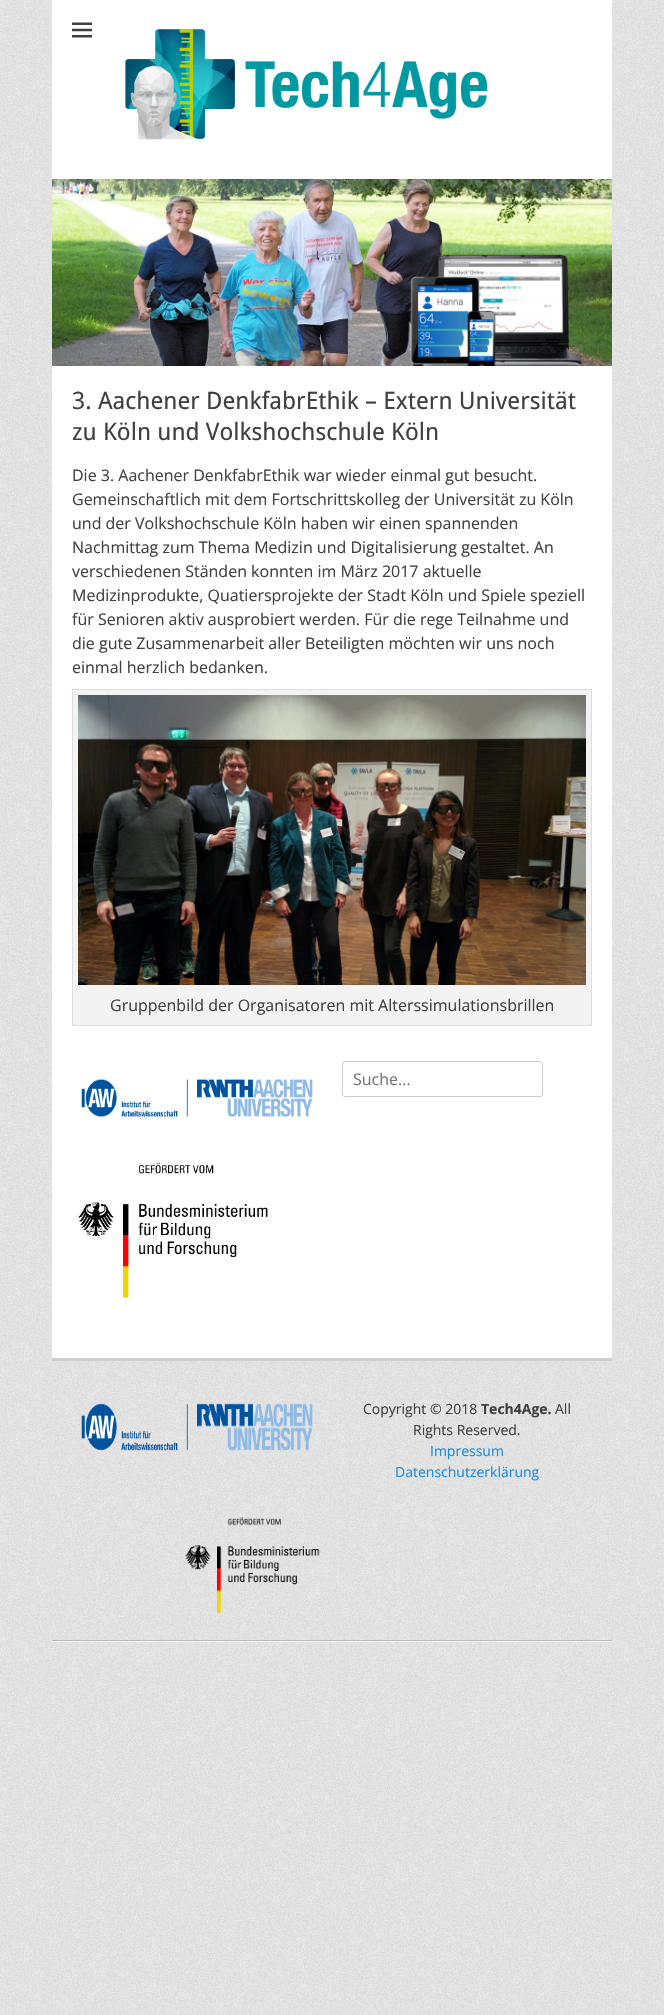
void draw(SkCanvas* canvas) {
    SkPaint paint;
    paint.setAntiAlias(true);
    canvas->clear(0xFFFFFFFF);
    canvas->drawImageRect(SkImages::DeferredFromEncodedData(SkData::MakeFromFileName("img1.png")), SkRect::MakeXYWH(0, 0, 664, 2015), SkSamplingOptions());
    paint.setColor(0xFFFFFFFF);
    canvas->drawRect(SkRect::MakeXYWH(52, 0, 560, 179), paint);
    canvas->drawImageRect(SkImages::DeferredFromEncodedData(SkData::MakeFromFileName("img2.png")), SkRect::MakeXYWH(72, 22, 20, 16), SkSamplingOptions());
    canvas->drawImageRect(SkImages::DeferredFromEncodedData(SkData::MakeFromFileName("img3.png")), SkRect::MakeXYWH(125, 29, 363, 111), SkSamplingOptions());
    canvas->drawImageRect(SkImages::DeferredFromEncodedData(SkData::MakeFromFileName("img4.png")), SkRect::MakeXYWH(52, 179, 560, 187), SkSamplingOptions());
    canvas->drawRect(SkRect::MakeXYWH(52, 366, 560, 992), paint);
    SkFont font1(fontMgr->matchFamilyStyle("Droid Sans", SkFontStyle::Normal()), 24);
    font1.setSubpixel(true);
    paint.setColor(0xFF404040);
    canvas->drawString("3. Aachener DenkfabrEthik – Extern Universität", 72, 409, font1, paint);
    canvas->drawString("zu Köln und Volkshochschule Köln", 72, 440, font1, paint);
    SkFont font2(fontMgr->matchFamilyStyle("Open Sans", SkFontStyle::Normal()), 16);
    font2.setSubpixel(true);
    canvas->drawString("Die 3. Aachener DenkfabrEthik war wieder einmal gut besucht.", 72, 481, font2, paint);
    canvas->drawString("Gemeinschaftlich mit dem Fortschrittskolleg der Universität zu Köln", 72, 505, font2, paint);
    canvas->drawString("und der Volkshochschule Köln haben wir einen spannenden", 72, 529, font2, paint);
    canvas->drawString("Nachmittag zum Thema Medizin und Digitalisierung gestaltet. An", 72, 553, font2, paint);
    canvas->drawString("verschiedenen Ständen konnten im März 2017 aktuelle", 72, 577, font2, paint);
    canvas->drawString("Medizinprodukte, Quatiersprojekte der Stadt Köln und Spiele speziell", 72, 601, font2, paint);
    canvas->drawString("für Senioren aktiv ausprobiert werden. Für die rege Teilnahme und", 72, 625, font2, paint);
    canvas->drawString("die gute Zusammenarbeit aller Beteiligten möchten wir uns noch", 72, 649, font2, paint);
    canvas->drawString("einmal herzlich bedanken.", 72, 673, font2, paint);
    paint.setColor(0xFFF3F3F3);
    canvas->drawRect(SkRect::MakeXYWH(72.5f, 689.5f, 519, 336), paint);
    paint.setStyle(SkPaint::kStroke_Style);
    paint.setStrokeWidth(1);
    paint.setColor(0xFFDDDDDD);
    canvas->drawRect(SkRect::MakeXYWH(72.5f, 689.5f, 519, 336), paint);
    canvas->drawImageRect(SkImages::DeferredFromEncodedData(SkData::MakeFromFileName("img5.png")), SkRect::MakeXYWH(78, 695, 508, 290), SkSamplingOptions());
    paint.setStyle(SkPaint::kFill_Style);
    paint.setColor(0xFF404040);
    canvas->drawString("Gruppenbild der Organisatoren mit Alterssimulationsbrillen", 110, 1011, font2, paint);
    canvas->drawImageRect(SkImages::DeferredFromEncodedData(SkData::MakeFromFileName("img6.png")), SkRect::MakeXYWH(81, 1079, 232, 38), SkSamplingOptions());
    canvas->drawImageRect(SkImages::DeferredFromEncodedData(SkData::MakeFromFileName("img7.png")), SkRect::MakeXYWH(78, 1163, 190, 135), SkSamplingOptions());
    paint.setStyle(SkPaint::kStroke_Style);
    paint.setColor(0xFFCCCCCC);
    canvas->drawRoundRect(SkRect::MakeXYWH(342.5f, 1061.5f, 200, 35), 2.5f, 2.5f, paint);
    paint.setStyle(SkPaint::kFill_Style);
    paint.setColor(0xFF757575);
    canvas->drawString("Suche...", 353, 1085, font2, paint);
    paint.setColor(0xFFCFCFCF);
    canvas->drawRect(SkRect::MakeXYWH(52, 1358, 560, 3), paint);
    paint.setColor(0xFFBCBCBC);
    canvas->drawRect(SkRect::MakeXYWH(52, 1640, 560, 1), paint);
    canvas->drawImageRect(SkImages::DeferredFromEncodedData(SkData::MakeFromFileName("img8.png")), SkRect::MakeXYWH(81, 1403, 232, 48), SkSamplingOptions());
    SkFont font3(fontMgr->matchFamilyStyle("Open Sans", SkFontStyle::Normal()), 14);
    font3.setSubpixel(true);
    paint.setColor(0xFF404040);
    canvas->drawString("Copyright © 2018", 363, 1414, font3, paint);
    SkFont font4(fontMgr->matchFamilyStyle("Open Sans", SkFontStyle::Bold()), 14);
    font4.setSubpixel(true);
    canvas->drawString("Tech4Age.", 481, 1414, font4, paint);
    canvas->drawString("All", 555, 1414, font3, paint);
    canvas->drawString("Rights Reserved.", 413, 1435, font3, paint);
    paint.setColor(0xFF1B8BE0);
    canvas->drawString("Impressum", 430, 1456, font3, paint);
    canvas->drawString("Datenschutzerklärung", 395, 1477, font3, paint);
    canvas->drawImageRect(SkImages::DeferredFromEncodedData(SkData::MakeFromFileName("img9.png")), SkRect::MakeXYWH(185, 1517, 135, 97), SkSamplingOptions());
    paint.setColor(0xFFF4F4F4);
    canvas->drawRect(SkRect::MakeXYWH(52, 1641, 560, 1), paint);
}
